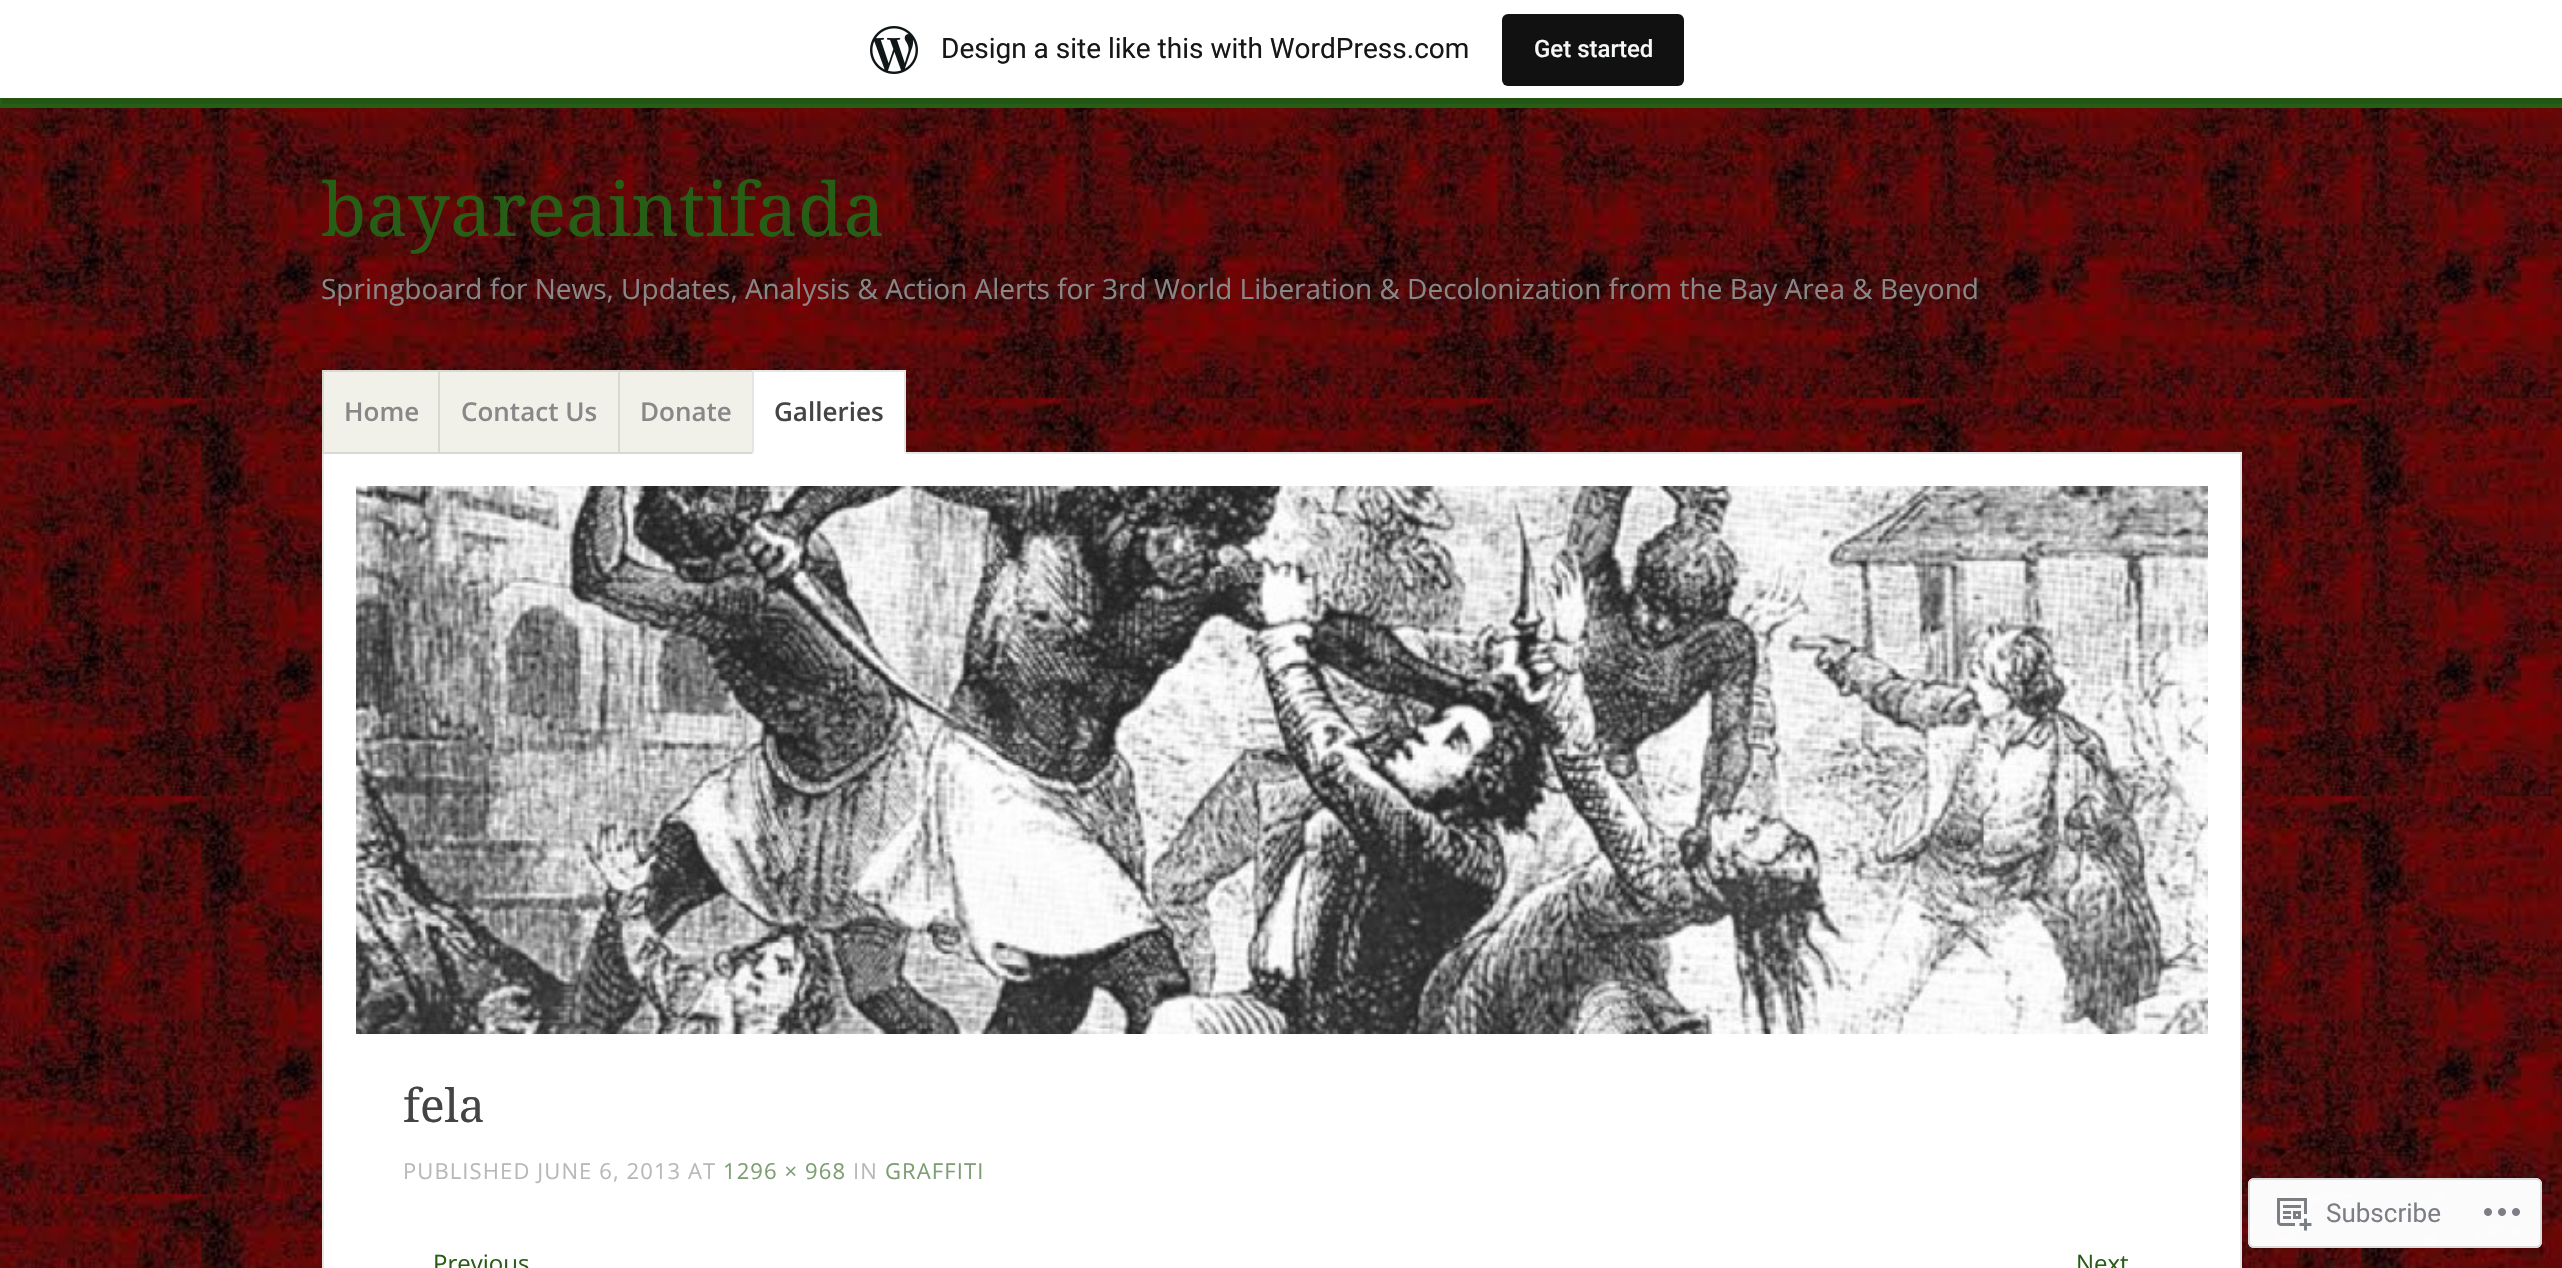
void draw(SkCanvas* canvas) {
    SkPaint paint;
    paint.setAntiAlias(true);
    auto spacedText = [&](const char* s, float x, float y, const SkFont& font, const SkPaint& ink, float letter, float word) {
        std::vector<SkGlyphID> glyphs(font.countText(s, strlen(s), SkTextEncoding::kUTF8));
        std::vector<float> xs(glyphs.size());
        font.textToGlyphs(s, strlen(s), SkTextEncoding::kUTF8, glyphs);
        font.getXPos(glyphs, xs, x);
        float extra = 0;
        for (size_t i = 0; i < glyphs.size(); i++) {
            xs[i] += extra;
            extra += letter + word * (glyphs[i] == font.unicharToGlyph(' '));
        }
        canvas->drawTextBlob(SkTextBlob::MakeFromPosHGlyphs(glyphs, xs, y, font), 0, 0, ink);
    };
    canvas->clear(0xFFFFFFFF);
    canvas->drawImageRect(SkImages::DeferredFromEncodedData(SkData::MakeFromFileName("img1.png")), SkRect::MakeXYWH(0, 108, 2562, 1160), SkSamplingOptions());
    paint.setColor(0xFF265E15);
    canvas->drawRect(SkRect::MakeXYWH(0, 98, 2562, 10), paint);
    paint.setColor(0x0D000000);
    paint.setMaskFilter(SkMaskFilter::MakeBlur(kNormal_SkBlurStyle, 2));
    canvas->drawRect(SkRect::MakeXYWH(0, 2, 2562, 98), paint);
    paint.setMaskFilter(nullptr);
    paint.setColor(0x14000000);
    canvas->drawPath(SkPathBuilder().moveTo(2, 98).lineTo(2, 104).lineTo(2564, 104).lineTo(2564, 6).lineTo(2562, 6).lineTo(2562, 98).close().detach(), paint);
    paint.setColor(0xFFFFFFFF);
    canvas->drawRect(SkRect::MakeXYWH(0, 0, 2562, 98), paint);
    canvas->drawImageRect(SkImages::DeferredFromEncodedData(SkData::MakeFromFileName("img2.png")), SkRect::MakeXYWH(870, 26, 48, 48), SkSamplingOptions());
    SkFont font1(fontMgr->matchFamilyStyle("Roboto", SkFontStyle::Normal()), 28);
    font1.setSubpixel(true);
    paint.setColor(0xFF171717);
    canvas->drawString("Design a site like this with WordPress.com", 941, 58, font1, paint);
    paint.setColor(0xFF111111);
    canvas->drawRoundRect(SkRect::MakeXYWH(1502, 14, 182, 72), 6, 6, paint);
    SkFont font2(fontMgr->matchFamilyStyle("Roboto", SkFontStyle(500, SkFontStyle::kNormal_Width, SkFontStyle::kUpright_Slant)), 24);
    font2.setSubpixel(true);
    paint.setColor(0xFFF6F7F7);
    canvas->drawString("Get started", 1534, 57, font2, paint);
    SkFont font3(fontMgr->matchFamilyStyle("Droid Serif", SkFontStyle::Normal()), 74);
    font3.setSubpixel(true);
    paint.setColor(0xFF265E15);
    canvas->drawString("bayareaintifada", 321, 236, font3, paint);
    SkFont font4(fontMgr->matchFamilyStyle("Open Sans", SkFontStyle::Normal()), 28);
    font4.setSubpixel(true);
    paint.setColor(0xFF888888);
    canvas->drawString("Springboard for News, Updates, Analysis & Action Alerts for 3rd World Liberation & Decolonization from the Bay Area & Beyond", 321, 299, font4, paint);
    paint.setColor(0xFFF1F1E9);
    canvas->drawRect(SkRect::MakeXYWH(324, 372, 114, 80), paint);
    paint.setColor(0xFFFFFFFF);
    canvas->drawRect(SkRect::MakeXYWH(323, 453, 1918, 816), paint);
    paint.setStyle(SkPaint::kStroke_Style);
    paint.setStrokeWidth(2);
    paint.setColor(0xFFE6E6E6);
    canvas->drawRect(SkRect::MakeXYWH(323, 453, 1918, 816), paint);
    paint.setColor(0xFFD9D9D2);
    canvas->drawRect(SkRect::MakeXYWH(323, 371, 118, 82), paint);
    SkFont font5(fontMgr->matchFamilyStyle("Open Sans", SkFontStyle(600, SkFontStyle::kNormal_Width, SkFontStyle::kUpright_Slant)), 26);
    font5.setSubpixel(true);
    paint.setStyle(SkPaint::kFill_Style);
    paint.setColor(0xFF888888);
    canvas->drawString("Home", 344, 421, font5, paint);
    paint.setColor(0xFFF1F1E9);
    canvas->drawRect(SkRect::MakeXYWH(439, 371, 180, 82), paint);
    paint.setStyle(SkPaint::kStroke_Style);
    paint.setColor(0xFFD9D9D2);
    canvas->drawRect(SkRect::MakeXYWH(439, 371, 180, 82), paint);
    paint.setStyle(SkPaint::kFill_Style);
    paint.setColor(0xFF888888);
    canvas->drawString("Contact Us", 461, 421, font5, paint);
    paint.setColor(0xFFF1F1E9);
    canvas->drawRect(SkRect::MakeXYWH(619, 371, 134, 82), paint);
    paint.setStyle(SkPaint::kStroke_Style);
    paint.setColor(0xFFD9D9D2);
    canvas->drawRect(SkRect::MakeXYWH(619, 371, 134, 82), paint);
    paint.setStyle(SkPaint::kFill_Style);
    paint.setColor(0xFF888888);
    canvas->drawString("Donate", 640, 421, font5, paint);
    paint.setColor(0xFFFFFFFF);
    canvas->drawRect(SkRect::MakeXYWH(752, 370, 154, 84), paint);
    paint.setColor(0xFFE6E6E6);
    canvas->drawPath(SkPathBuilder().moveTo(752, 370).lineTo(906, 370).lineTo(904, 372).lineTo(754, 372).close().detach(), paint);
    paint.setColor(0x1A000000);
    canvas->drawPath(SkPathBuilder().moveTo(906, 370).lineTo(906, 454).lineTo(904, 452).lineTo(904, 372).close().detach(), paint);
    paint.setColor(0xFFFFFFFF);
    canvas->drawPath(SkPathBuilder().moveTo(906, 454).lineTo(752, 454).lineTo(754, 452).lineTo(904, 452).close().detach(), paint);
    paint.setColor(0x1A000000);
    canvas->drawPath(SkPathBuilder().moveTo(752, 454).lineTo(752, 370).lineTo(754, 372).lineTo(754, 452).close().detach(), paint);
    paint.setColor(0xFF444444);
    canvas->drawString("Galleries", 774, 421, font5, paint);
    canvas->drawImageRect(SkImages::DeferredFromEncodedData(SkData::MakeFromFileName("img3.png")), SkRect::MakeXYWH(356, 486, 1852, 548), SkSamplingOptions());
    SkFont font6(fontMgr->matchFamilyStyle("Droid Serif", SkFontStyle::Normal()), 46);
    font6.setSubpixel(true);
    canvas->drawString("fela", 403, 1122, font6, paint);
    SkFont font7(fontMgr->matchFamilyStyle("Open Sans", SkFontStyle::Normal()), 22);
    font7.setSubpixel(true);
    paint.setColor(0xFFB8B8B8);
    spacedText("PUBLISHED JUNE 6, 2013 AT", 403, 1179, font7, paint, 1.1f, 0);
    paint.setColor(0xFF7D9E73);
    spacedText("1296 × 968", 723, 1179, font7, paint, 1.1f, 0);
    paint.setColor(0xFFB8B8B8);
    spacedText("IN", 853, 1179, font7, paint, 1.1f, 0);
    paint.setColor(0xFF7D9E73);
    spacedText("GRAFFITI", 885, 1179, font7, paint, 1.1f, 0);
    SkFont font8(fontMgr->matchFamilyStyle("Open Sans", SkFontStyle::Normal()), 24);
    font8.setSubpixel(true);
    paint.setColor(0xFF265E15);
    canvas->drawString("Previous", 433, 1272, font8, paint);
    canvas->drawString("Next", 2076, 1272, font8, paint);
    paint.setColor(0xFAFFFFFF);
    canvas->drawRoundRect(SkRect::MakeXYWH(2248, 1178, 294, 70), 6, 6, paint);
    paint.setStyle(SkPaint::kStroke_Style);
    paint.setColor(0xFADCDCDE);
    canvas->drawRoundRect(SkRect::MakeXYWH(2249, 1179, 292, 68), 5, 5, paint);
    canvas->drawImageRect(SkImages::DeferredFromEncodedData(SkData::MakeFromFileName("img4.png")), SkRect::MakeXYWH(2277, 1198, 35, 33), SkSamplingOptions());
    SkFont font9(fontMgr->matchFamilyStyle("Roboto", SkFontStyle::Normal()), 26);
    font9.setSubpixel(true);
    paint.setStyle(SkPaint::kFill_Style);
    paint.setColor(0xFF7B7F84);
    canvas->drawString("Subscribe", 2326, 1222, font9, paint);
    canvas->drawImageRect(SkImages::DeferredFromEncodedData(SkData::MakeFromFileName("img5.png")), SkRect::MakeXYWH(2484, 1208, 36, 8), SkSamplingOptions());
}
